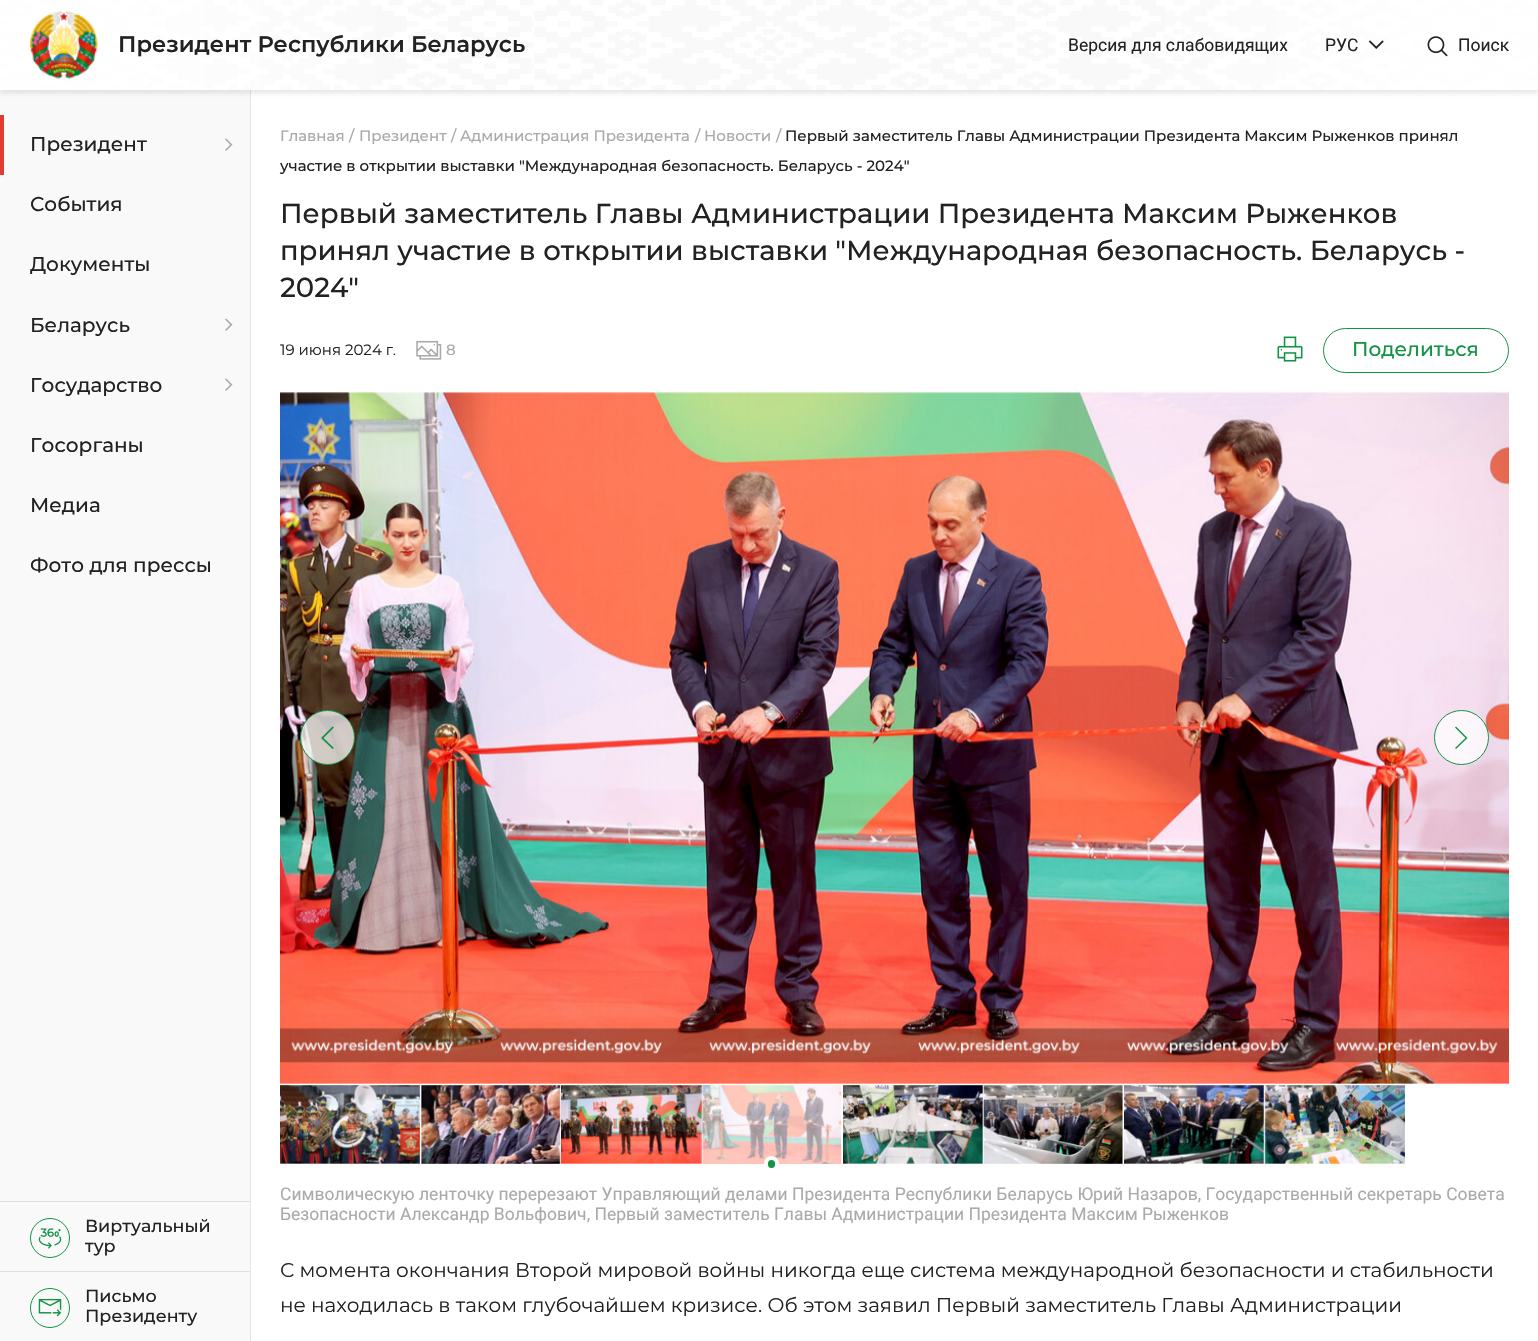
void draw(SkCanvas* canvas) {
    SkPaint paint;
    paint.setAntiAlias(true);
    canvas->clear(0xFFFFFFFF);
    paint.setColor(0xFFE6E6E6);
    canvas->drawRect(SkRect::MakeXYWH(250, 90, 1, 1251), paint);
    paint.setColor(0xFFF9F9F9);
    canvas->drawRect(SkRect::MakeXYWH(0, 90, 250, 1251), paint);
    paint.setColor(0x1F222222);
    paint.setMaskFilter(SkMaskFilter::MakeBlur(kNormal_SkBlurStyle, 2.5f));
    canvas->drawRect(SkRect::MakeXYWH(0, 3, 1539, 90), paint);
    paint.setMaskFilter(nullptr);
    canvas->drawImageRect(SkImages::DeferredFromEncodedData(SkData::MakeFromFileName("img1.png")), SkRect::MakeXYWH(0, 0, 1538, 90), SkSamplingOptions());
    canvas->drawImageRect(SkImages::DeferredFromEncodedData(SkData::MakeFromFileName("img2.png")), SkRect::MakeXYWH(30, 11, 68, 68), SkSamplingOptions());
    SkFont font1(fontMgr->matchFamilyStyle("Montserrat", SkFontStyle(600, SkFontStyle::kNormal_Width, SkFontStyle::kUpright_Slant)), 22.5f);
    font1.setSubpixel(true);
    paint.setColor(0xFF222222);
    canvas->drawString("Президент Республики Беларусь", 118, 52, font1, paint);
    SkFont font2(fontMgr->matchFamilyStyle("Roboto", SkFontStyle::Normal()), 17.5f);
    font2.setSubpixel(true);
    canvas->drawString("Версия для слабовидящих", 1068, 51, font2, paint);
    canvas->drawString("РУС", 1325, 51, font2, paint);
    canvas->drawImageRect(SkImages::DeferredFromEncodedData(SkData::MakeFromFileName("img3.png")), SkRect::MakeXYWH(1368, 40, 16, 9), SkSamplingOptions());
    canvas->drawImageRect(SkImages::DeferredFromEncodedData(SkData::MakeFromFileName("img4.png")), SkRect::MakeXYWH(1427, 36, 21, 21), SkSamplingOptions());
    canvas->drawString("Поиск", 1458, 51, font2, paint);
    paint.setColor(0xFFE23B2F);
    canvas->drawRect(SkRect::MakeXYWH(0, 115, 4, 60), paint);
    SkFont font3(fontMgr->matchFamilyStyle("Montserrat", SkFontStyle(500, SkFontStyle::kNormal_Width, SkFontStyle::kUpright_Slant)), 20);
    font3.setSubpixel(true);
    paint.setColor(0xFF222222);
    canvas->drawString("Президент", 30, 151, font3, paint);
    canvas->drawImageRect(SkImages::DeferredFromEncodedData(SkData::MakeFromFileName("img5.png")), SkRect::MakeXYWH(225, 138, 8, 13), SkSamplingOptions());
    canvas->drawString("События", 30, 211, font3, paint);
    canvas->drawString("Документы", 30, 271, font3, paint);
    canvas->drawString("Беларусь", 30, 332, font3, paint);
    canvas->drawImageRect(SkImages::DeferredFromEncodedData(SkData::MakeFromFileName("img5.png")), SkRect::MakeXYWH(225, 318, 8, 13), SkSamplingOptions());
    canvas->drawString("Государство", 30, 392, font3, paint);
    canvas->drawImageRect(SkImages::DeferredFromEncodedData(SkData::MakeFromFileName("img5.png")), SkRect::MakeXYWH(225, 378, 8, 13), SkSamplingOptions());
    canvas->drawString("Госорганы", 30, 452, font3, paint);
    canvas->drawString("Медиа", 30, 512, font3, paint);
    canvas->drawString("Фото для прессы", 30, 572, font3, paint);
    paint.setColor(0xFFE0E0E0);
    canvas->drawRect(SkRect::MakeXYWH(0, 1201, 250, 1), paint);
    paint.setStyle(SkPaint::kStroke_Style);
    paint.setStrokeWidth(1);
    paint.setColor(0xFF139345);
    canvas->drawCircle(50, 1238, 19.5f, paint);
    canvas->drawImageRect(SkImages::DeferredFromEncodedData(SkData::MakeFromFileName("img6.png")), SkRect::MakeXYWH(38, 1228, 24, 21), SkSamplingOptions());
    SkFont font4(fontMgr->matchFamilyStyle("Montserrat", SkFontStyle(500, SkFontStyle::kNormal_Width, SkFontStyle::kUpright_Slant)), 17.5f);
    font4.setSubpixel(true);
    paint.setStyle(SkPaint::kFill_Style);
    paint.setColor(0xFF222222);
    canvas->drawString("Виртуальный", 85, 1232, font4, paint);
    canvas->drawString("тур", 85, 1252, font4, paint);
    paint.setColor(0xFFE0E0E0);
    canvas->drawRect(SkRect::MakeXYWH(0, 1271, 250, 1), paint);
    paint.setStyle(SkPaint::kStroke_Style);
    paint.setColor(0xFF139345);
    canvas->drawCircle(50, 1308, 19.5f, paint);
    canvas->drawImageRect(SkImages::DeferredFromEncodedData(SkData::MakeFromFileName("img7.png")), SkRect::MakeXYWH(38, 1298, 24, 19), SkSamplingOptions());
    paint.setStyle(SkPaint::kFill_Style);
    paint.setColor(0xFF222222);
    canvas->drawString("Письмо", 85, 1302, font4, paint);
    canvas->drawString("Президенту", 85, 1322, font4, paint);
    SkFont font5(fontMgr->matchFamilyStyle("Montserrat", SkFontStyle(500, SkFontStyle::kNormal_Width, SkFontStyle::kUpright_Slant)), 15);
    font5.setSubpixel(true);
    paint.setColor(0xFFAAAAAA);
    canvas->drawString("Главная", 280, 141, font5, paint);
    canvas->drawString("/", 349, 141, font5, paint);
    canvas->drawString("Президент", 359, 141, font5, paint);
    canvas->drawString("/", 451, 141, font5, paint);
    canvas->drawString("Администрация Президента", 460, 141, font5, paint);
    canvas->drawString("/", 695, 141, font5, paint);
    canvas->drawString("Новости", 704, 141, font5, paint);
    canvas->drawString("/", 776, 141, font5, paint);
    paint.setColor(0xFF222222);
    canvas->drawString("Первый заместитель Главы Администрации Президента Максим Рыженков принял", 785, 141, font5, paint);
    canvas->drawString("участие в открытии выставки \"Международная безопасность. Беларусь - 2024\"", 280, 171, font5, paint);
    SkFont font6(fontMgr->matchFamilyStyle("Montserrat", SkFontStyle(500, SkFontStyle::kNormal_Width, SkFontStyle::kUpright_Slant)), 27.5f);
    font6.setSubpixel(true);
    canvas->drawString("Первый заместитель Главы Администрации Президента Максим Рыженков", 280, 223, font6, paint);
    canvas->drawString("принял участие в открытии выставки \"Международная безопасность. Беларусь -", 280, 260, font6, paint);
    canvas->drawString("2024\"", 280, 297, font6, paint);
    SkFont font7(fontMgr->matchFamilyStyle("Montserrat", SkFontStyle::Normal()), 15);
    font7.setSubpixel(true);
    canvas->drawString("19 июня 2024 г.", 280, 355, font7, paint);
    canvas->drawImageRect(SkImages::DeferredFromEncodedData(SkData::MakeFromFileName("img8.png")), SkRect::MakeXYWH(416, 340, 26, 20), SkSamplingOptions());
    paint.setColor(0xFFAAAAAA);
    canvas->drawString("8", 446, 355, font5, paint);
    canvas->drawImageRect(SkImages::DeferredFromEncodedData(SkData::MakeFromFileName("img9.png")), SkRect::MakeXYWH(1277, 336, 26, 26), SkSamplingOptions());
    paint.setStyle(SkPaint::kStroke_Style);
    paint.setColor(0xFF139345);
    canvas->drawRoundRect(SkRect::MakeXYWH(1323.5f, 328.5f, 185, 44), 22, 22, paint);
    paint.setStyle(SkPaint::kFill_Style);
    canvas->drawString("Поделиться", 1352, 356, font3, paint);
    canvas->drawImageRect(SkImages::DeferredFromEncodedData(SkData::MakeFromFileName("img10.png")), SkRect::MakeXYWH(280, 392, 1229, 692), SkSamplingOptions());
    paint.setColor(0xBFFFFFFF);
    canvas->drawCircle(327.5f, 737.5f, 27, paint);
    paint.setStyle(SkPaint::kStroke_Style);
    paint.setColor(0xFF139345);
    canvas->drawCircle(327.5f, 737.5f, 27, paint);
    paint.setStyle(SkPaint::kFill_Style);
    canvas->drawPath(SkPathBuilder().moveTo(334, 727.5f).lineTo(332.5f, 726.5f).lineTo(321, 738).lineTo(332.5f, 749).lineTo(334, 748).lineTo(323.5f, 738).close().detach(), paint);
    paint.setColor(0xBFFFFFFF);
    canvas->drawCircle(1461.5f, 737.5f, 27, paint);
    paint.setStyle(SkPaint::kStroke_Style);
    paint.setColor(0xFF139345);
    canvas->drawCircle(1461.5f, 737.5f, 27, paint);
    paint.setStyle(SkPaint::kFill_Style);
    canvas->drawPath(SkPathBuilder().moveTo(1455, 748).lineTo(1456, 749).lineTo(1467.5f, 738).lineTo(1456, 726.5f).lineTo(1455, 727.5f).lineTo(1465.5f, 738).close().detach(), paint);
    canvas->drawImageRect(SkImages::DeferredFromEncodedData(SkData::MakeFromFileName("img11.png")), SkRect::MakeXYWH(280, 1085, 140, 79), SkSamplingOptions());
    canvas->drawImageRect(SkImages::DeferredFromEncodedData(SkData::MakeFromFileName("img12.png")), SkRect::MakeXYWH(420, 1085, 141, 79), SkSamplingOptions());
    canvas->drawImageRect(SkImages::DeferredFromEncodedData(SkData::MakeFromFileName("img13.png")), SkRect::MakeXYWH(561, 1085, 141, 79), SkSamplingOptions());
    canvas->drawImageRect(SkImages::DeferredFromEncodedData(SkData::MakeFromFileName("img14.png")), SkRect::MakeXYWH(702, 1085, 140, 79), SkSamplingOptions());
    paint.setColor(0xFFFFFFFF);
    canvas->drawCircle(771.5f, 1163.5f, 7.5f, paint);
    paint.setColor(0xFF139345);
    canvas->drawRoundRect(SkRect::MakeXYWH(768, 1160, 7, 8), 3.5f, 3.5f, paint);
    canvas->drawImageRect(SkImages::DeferredFromEncodedData(SkData::MakeFromFileName("img15.png")), SkRect::MakeXYWH(843, 1085, 140, 79), SkSamplingOptions());
    canvas->drawImageRect(SkImages::DeferredFromEncodedData(SkData::MakeFromFileName("img16.png")), SkRect::MakeXYWH(983, 1085, 140, 79), SkSamplingOptions());
    canvas->drawImageRect(SkImages::DeferredFromEncodedData(SkData::MakeFromFileName("img17.png")), SkRect::MakeXYWH(1124, 1085, 140, 79), SkSamplingOptions());
    canvas->drawImageRect(SkImages::DeferredFromEncodedData(SkData::MakeFromFileName("img18.png")), SkRect::MakeXYWH(1264, 1085, 141, 79), SkSamplingOptions());
    paint.setColor(0xFFAAAAAA);
    canvas->drawString("Символическую ленточку перерезают Управляющий делами Президента Республики Беларусь Юрий Назаров, Государственный секретарь Совета", 280, 1200, font2, paint);
    canvas->drawString("Безопасности Александр Вольфович, Первый заместитель Главы Администрации Президента Максим Рыженков", 280, 1220, font2, paint);
    SkFont font8(fontMgr->matchFamilyStyle("Montserrat", SkFontStyle::Normal()), 20);
    font8.setSubpixel(true);
    paint.setColor(0xFF222222);
    canvas->drawString("С момента окончания Второй мировой войны никогда еще система международной безопасности и стабильности", 280, 1277, font8, paint);
    canvas->drawString("не находилась в таком глубочайшем кризисе. Об этом заявил Первый заместитель Главы Администрации", 280, 1312, font8, paint);
}
